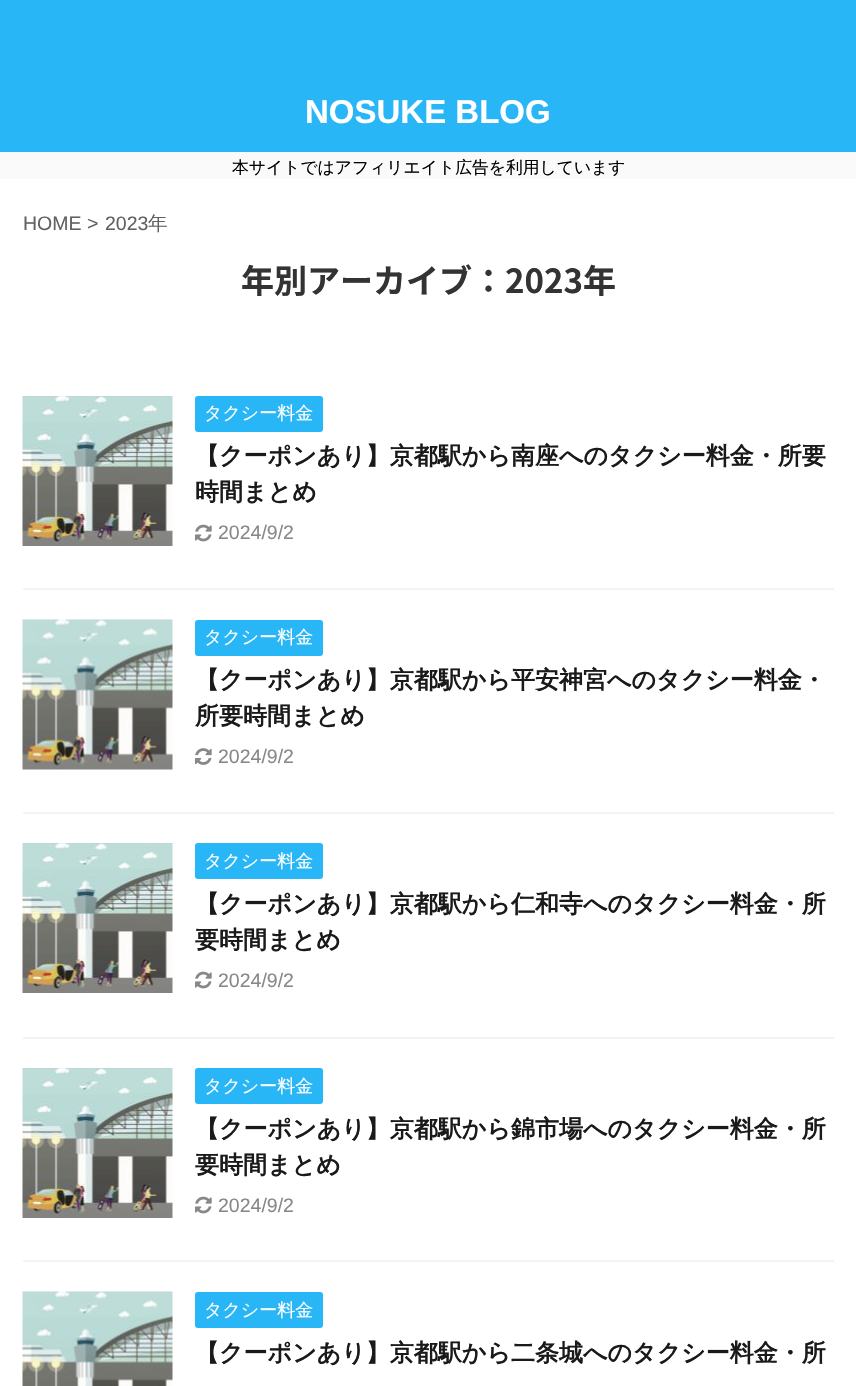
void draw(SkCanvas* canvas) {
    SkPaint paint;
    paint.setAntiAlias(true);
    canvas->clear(0xFFFAFAFA);
    paint.setColor(0xFF29B6F6);
    canvas->drawRect(SkRect::MakeXYWH(0, 0, 856, 152), paint);
    SkFont font1(fontMgr->matchFamilyStyle("Liberation Sans", SkFontStyle::Bold()), 33);
    font1.setSubpixel(true);
    paint.setColor(0xFFFFFFFF);
    canvas->drawString("NOSUKE BLOG", 305, 123, font1, paint);
    SkFont font2(fontMgr->matchFamilyStyle("WenQuanYi Zen Hei", SkFontStyle(500, SkFontStyle::kNormal_Width, SkFontStyle::kUpright_Slant)), 16.8f);
    font2.setSubpixel(true);
    paint.setColor(0xFF000000);
    canvas->drawString("本サイトではアフィリエイト広告を利用しています", 232, 173, font2, paint);
    paint.setColor(0xFFFFFFFF);
    canvas->drawRect(SkRect::MakeXYWH(0, 179, 856, 1207), paint);
    SkFont font3(fontMgr->matchFamilyStyle("Liberation Sans", SkFontStyle::Normal()), 19.5f);
    font3.setSubpixel(true);
    paint.setColor(0xFF616161);
    canvas->drawString("HOME >", 23, 230, font3, paint);
    canvas->drawString("2023", 105, 230, font3, paint);
    SkFont font4(fontMgr->matchFamilyStyle("WenQuanYi Zen Hei", SkFontStyle(500, SkFontStyle::kNormal_Width, SkFontStyle::kUpright_Slant)), 19.5f);
    font4.setSubpixel(true);
    canvas->drawString("年", 148, 230, font4, paint);
    SkFont font5(fontMgr->matchFamilyStyle("Noto Sans JP", SkFontStyle::Bold()), 33);
    font5.setSubpixel(true);
    paint.setColor(0xFF333333);
    canvas->drawString("年別アーカイブ：2023年", 241, 293, font5, paint);
    paint.setColor(0xFFF3F3F3);
    canvas->drawRect(SkRect::MakeXYWH(23, 588, 811, 2), paint);
    canvas->drawImageRect(SkImages::DeferredFromEncodedData(SkData::MakeFromFileName("img1.png")), SkRect::MakeXYWH(22, 396, 151, 150), SkSamplingOptions());
    paint.setColor(0xFF29B6F6);
    canvas->drawRoundRect(SkRect::MakeXYWH(195, 396, 128, 36), 3, 3, paint);
    SkFont font6(fontMgr->matchFamilyStyle("WenQuanYi Zen Hei", SkFontStyle(500, SkFontStyle::kNormal_Width, SkFontStyle::kUpright_Slant)), 18);
    font6.setSubpixel(true);
    paint.setColor(0xFFFFFFFF);
    canvas->drawString("タクシー料金", 204, 419, font6, paint);
    SkFont font7(fontMgr->matchFamilyStyle("WenQuanYi Zen Hei", SkFontStyle::Bold()), 24);
    font7.setSubpixel(true);
    paint.setColor(0xFF1A1A1A);
    canvas->drawString("【クーポンあり】京都駅から南座へのタクシー料金・所要", 195, 464, font7, paint);
    canvas->drawString("時間まとめ", 195, 500, font7, paint);
    canvas->drawImageRect(SkImages::DeferredFromEncodedData(SkData::MakeFromFileName("img2.png")), SkRect::MakeXYWH(195, 524, 17, 18), SkSamplingOptions());
    paint.setColor(0xFF888888);
    canvas->drawString("2024/9/2", 218, 539, font3, paint);
    paint.setColor(0xFFF3F3F3);
    canvas->drawRect(SkRect::MakeXYWH(23, 812, 811, 2), paint);
    canvas->drawImageRect(SkImages::DeferredFromEncodedData(SkData::MakeFromFileName("img3.png")), SkRect::MakeXYWH(22, 619, 151, 151), SkSamplingOptions());
    paint.setColor(0xFF29B6F6);
    canvas->drawRoundRect(SkRect::MakeXYWH(195, 620, 128, 36), 3, 3, paint);
    paint.setColor(0xFFFFFFFF);
    canvas->drawString("タクシー料金", 204, 643, font6, paint);
    paint.setColor(0xFF1A1A1A);
    canvas->drawString("【クーポンあり】京都駅から平安神宮へのタクシー料金・", 195, 688, font7, paint);
    canvas->drawString("所要時間まとめ", 195, 724, font7, paint);
    canvas->drawImageRect(SkImages::DeferredFromEncodedData(SkData::MakeFromFileName("img4.png")), SkRect::MakeXYWH(195, 748, 17, 17), SkSamplingOptions());
    paint.setColor(0xFF888888);
    canvas->drawString("2024/9/2", 218, 763, font3, paint);
    paint.setColor(0xFFF3F3F3);
    canvas->drawRect(SkRect::MakeXYWH(23, 1037, 811, 2), paint);
    canvas->drawImageRect(SkImages::DeferredFromEncodedData(SkData::MakeFromFileName("img1.png")), SkRect::MakeXYWH(22, 843, 151, 150), SkSamplingOptions());
    paint.setColor(0xFF29B6F6);
    canvas->drawRoundRect(SkRect::MakeXYWH(195, 843, 128, 36), 3, 3, paint);
    paint.setColor(0xFFFFFFFF);
    canvas->drawString("タクシー料金", 204, 867, font6, paint);
    paint.setColor(0xFF1A1A1A);
    canvas->drawString("【クーポンあり】京都駅から仁和寺へのタクシー料金・所", 195, 912, font7, paint);
    canvas->drawString("要時間まとめ", 195, 948, font7, paint);
    canvas->drawImageRect(SkImages::DeferredFromEncodedData(SkData::MakeFromFileName("img2.png")), SkRect::MakeXYWH(195, 971, 17, 18), SkSamplingOptions());
    paint.setColor(0xFF888888);
    canvas->drawString("2024/9/2", 218, 987, font3, paint);
    paint.setColor(0xFFF3F3F3);
    canvas->drawRect(SkRect::MakeXYWH(23, 1260, 811, 2), paint);
    canvas->drawImageRect(SkImages::DeferredFromEncodedData(SkData::MakeFromFileName("img1.png")), SkRect::MakeXYWH(22, 1068, 151, 150), SkSamplingOptions());
    paint.setColor(0xFF29B6F6);
    canvas->drawRoundRect(SkRect::MakeXYWH(195, 1068, 128, 36), 3, 3, paint);
    paint.setColor(0xFFFFFFFF);
    canvas->drawString("タクシー料金", 204, 1092, font6, paint);
    paint.setColor(0xFF1A1A1A);
    canvas->drawString("【クーポンあり】京都駅から錦市場へのタクシー料金・所", 195, 1137, font7, paint);
    canvas->drawString("要時間まとめ", 195, 1173, font7, paint);
    canvas->drawImageRect(SkImages::DeferredFromEncodedData(SkData::MakeFromFileName("img2.png")), SkRect::MakeXYWH(195, 1196, 17, 18), SkSamplingOptions());
    paint.setColor(0xFF888888);
    canvas->drawString("2024/9/2", 218, 1212, font3, paint);
    canvas->drawImageRect(SkImages::DeferredFromEncodedData(SkData::MakeFromFileName("img5.png")), SkRect::MakeXYWH(22, 1291, 151, 95), SkSamplingOptions());
    paint.setColor(0xFF29B6F6);
    canvas->drawRoundRect(SkRect::MakeXYWH(195, 1292, 128, 36), 3, 3, paint);
    paint.setColor(0xFFFFFFFF);
    canvas->drawString("タクシー料金", 204, 1316, font6, paint);
    paint.setColor(0xFF1A1A1A);
    canvas->drawString("【クーポンあり】京都駅から二条城へのタクシー料金・所", 195, 1361, font7, paint);
}
